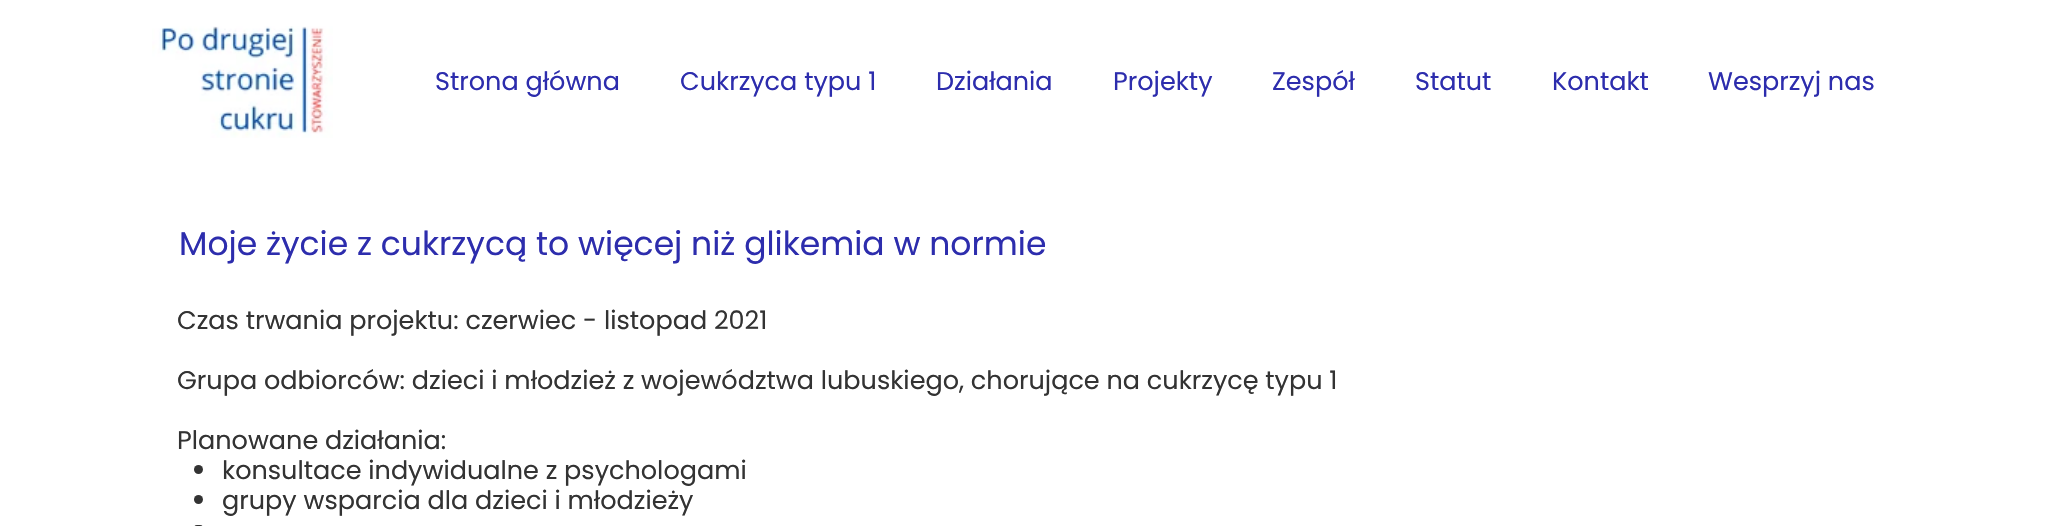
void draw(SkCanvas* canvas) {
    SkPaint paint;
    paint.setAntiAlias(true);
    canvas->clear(0xFFFFFFFF);
    canvas->drawImageRect(SkImages::DeferredFromEncodedData(SkData::MakeFromFileName("img1.png")), SkRect::MakeXYWH(152, 26, 181, 112), SkSamplingOptions());
    SkFont font1(fontMgr->matchFamilyStyle("Poppins", SkFontStyle::Normal()), 25.5f);
    font1.setSubpixel(true);
    paint.setColor(0xFF2D2DAD);
    canvas->drawString("Strona główna", 435, 90, font1, paint);
    canvas->drawString("Cukrzyca typu 1", 680, 90, font1, paint);
    canvas->drawString("Działania", 936, 90, font1, paint);
    canvas->drawString("Projekty", 1113, 90, font1, paint);
    canvas->drawString("Zespół", 1272, 90, font1, paint);
    canvas->drawString("Statut", 1415, 90, font1, paint);
    canvas->drawString("Kontakt", 1552, 90, font1, paint);
    canvas->drawString("Wesprzyj nas", 1708, 90, font1, paint);
    SkFont font2(fontMgr->matchFamilyStyle("Poppins", SkFontStyle::Normal()), 33);
    font2.setSubpixel(true);
    canvas->drawString("Moje życie z cukrzycą to więcej niż glikemia w normie", 179, 255, font2, paint);
    paint.setColor(0xFF333333);
    canvas->drawString("Czas trwania projektu: czerwiec - listopad 2021", 177, 329, font1, paint);
    canvas->drawString("Grupa odbiorców: dzieci i młodzież z województwa lubuskiego, chorujące na cukrzycę typu 1", 177, 389, font1, paint);
    canvas->drawString("Planowane działania:", 177, 449, font1, paint);
    canvas->drawCircle(198.5f, 469.5f, 4.5f, paint);
    canvas->drawString("konsultace indywidualne z psychologami", 222, 479, font1, paint);
    canvas->drawCircle(198.5f, 499.5f, 4.5f, paint);
    canvas->drawString("grupy wsparcia dla dzieci i młodzieży", 222, 509, font1, paint);
    canvas->drawRoundRect(SkRect::MakeXYWH(194, 525, 9, 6), 4.5f, 4.5f, paint);
}
